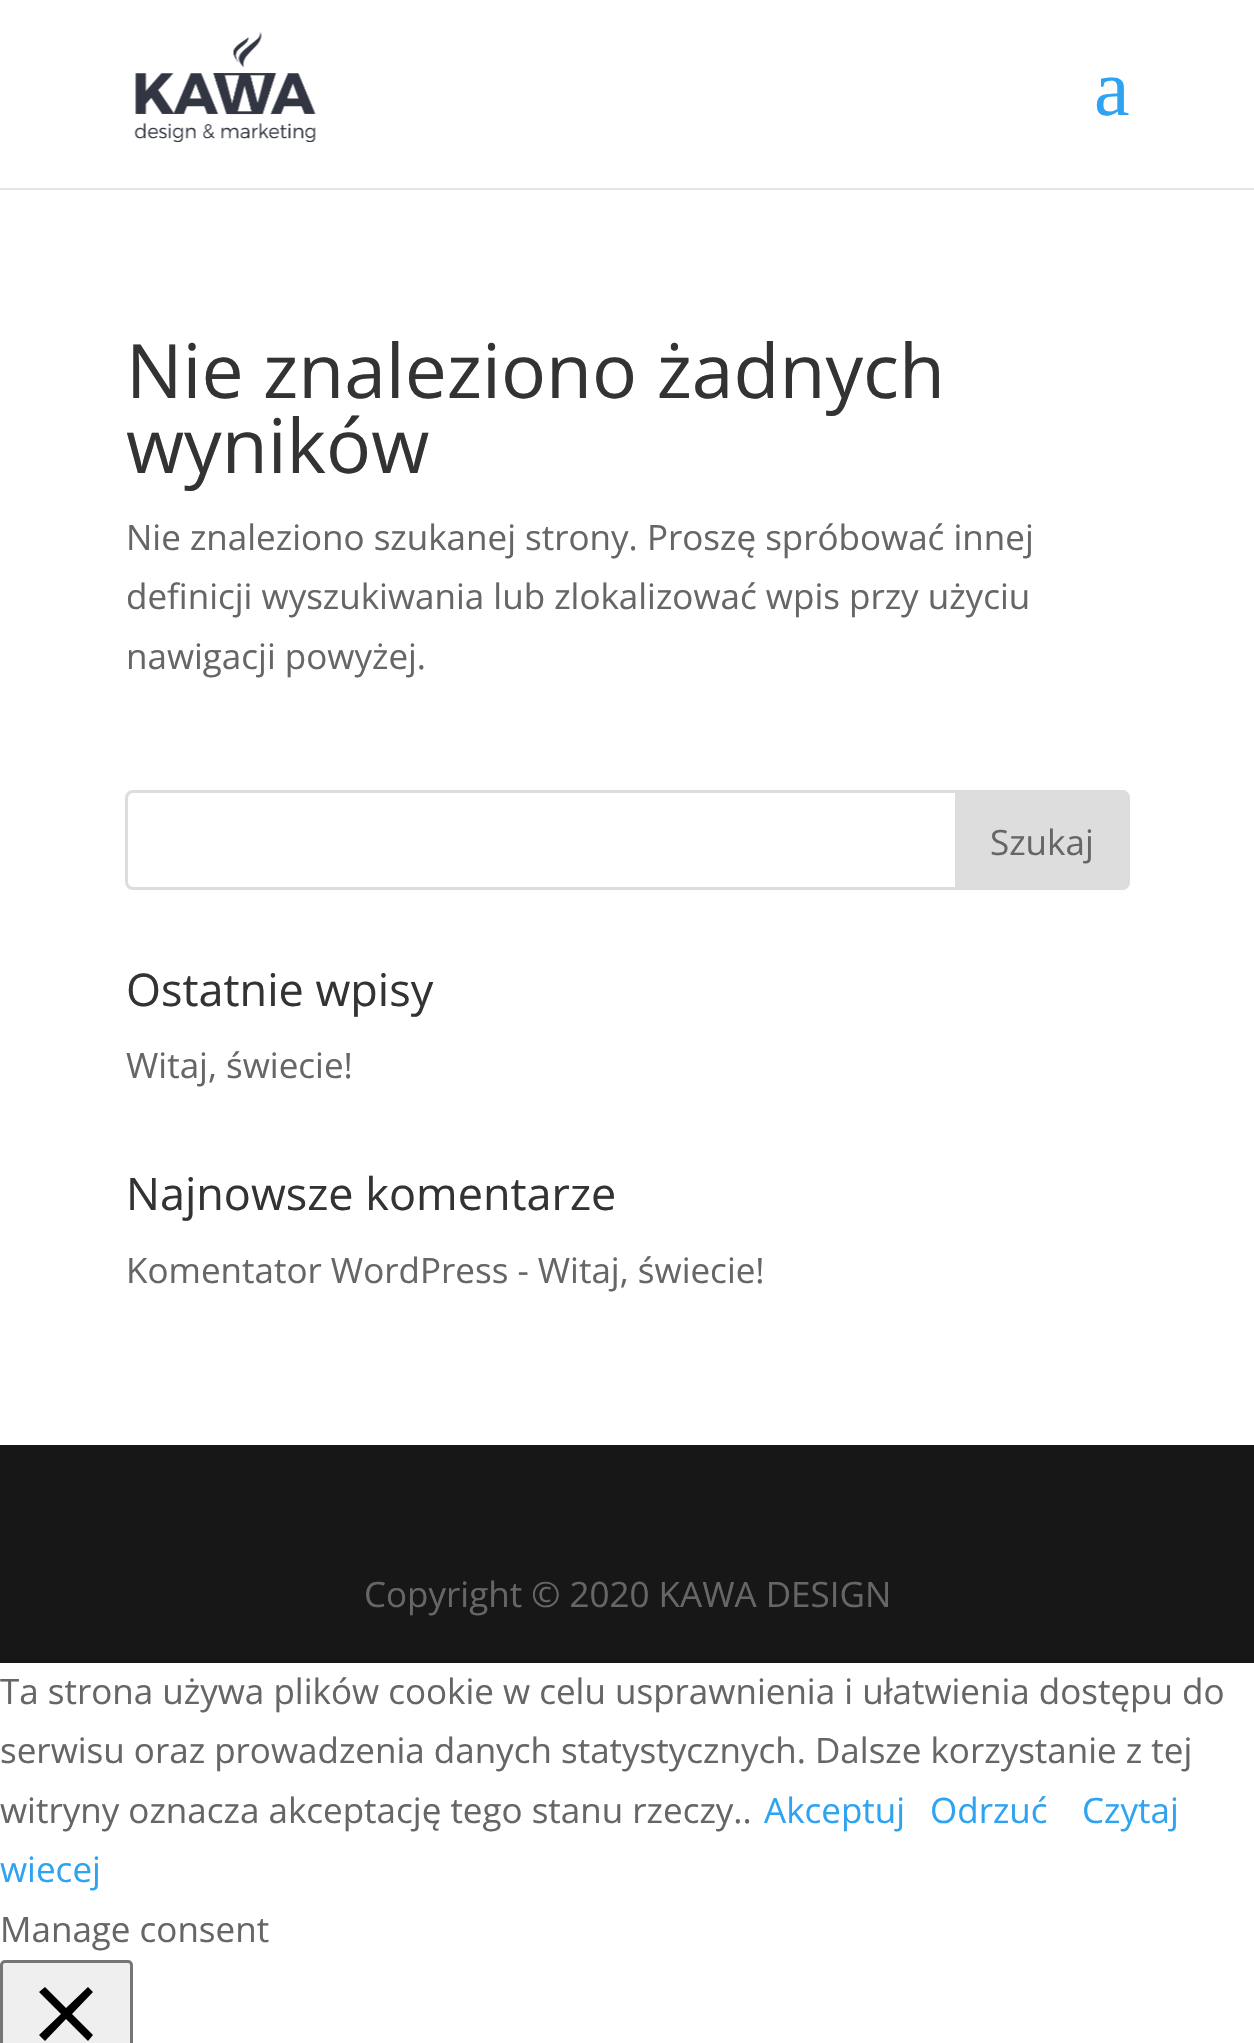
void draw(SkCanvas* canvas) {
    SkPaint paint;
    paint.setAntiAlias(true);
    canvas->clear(0xFFFFFFFF);
    paint.setColor(0xFFE6E6E6);
    canvas->drawRect(SkRect::MakeXYWH(0, 188, 1254, 2), paint);
    canvas->drawImageRect(SkImages::DeferredFromEncodedData(SkData::MakeFromFileName("img1.png")), SkRect::MakeXYWH(134, 32, 182, 110), SkSamplingOptions());
    SkFont font1(fontMgr->matchFamilyStyle("Liberation Serif", SkFontStyle::Normal()), 80);
    font1.setSubpixel(true);
    paint.setColor(0xFF2EA3F2);
    canvas->drawString("a", 1094, 115, font1, paint);
    SkFont font2(fontMgr->matchFamilyStyle("Open Sans", SkFontStyle::Normal()), 75);
    font2.setSubpixel(true);
    paint.setColor(0xFF333333);
    canvas->drawString("Nie znaleziono żadnych", 126, 398, font2, paint);
    canvas->drawString("wyników", 126, 473, font2, paint);
    SkFont font3(fontMgr->matchFamilyStyle("Open Sans", SkFontStyle::Normal()), 35);
    font3.setSubpixel(true);
    paint.setColor(0xFF666666);
    canvas->drawString("Nie znaleziono szukanej strony. Proszę spróbować innej", 126, 550, font3, paint);
    canvas->drawString("definicji wyszukiwania lub zlokalizować wpis przy użyciu", 126, 609, font3, paint);
    canvas->drawString("nawigacji powyżej.", 126, 669, font3, paint);
    paint.setStyle(SkPaint::kStroke_Style);
    paint.setStrokeWidth(3);
    paint.setColor(0xFFDDDDDD);
    canvas->drawRoundRect(SkRect::MakeXYWH(126.5f, 791.5f, 1002, 97), 6.5f, 6.5f, paint);
    paint.setStyle(SkPaint::kFill_Style);
    canvas->drawPath(SkPathBuilder().moveTo(956.5f, 791.5f).lineTo(1122, 791.5f).cubicTo(1125.5f, 791.5f, 1128.5f, 794.5f, 1128.5f, 798).lineTo(1128.5f, 882).cubicTo(1128.5f, 885.5f, 1125.5f, 888.5f, 1122, 888.5f).lineTo(956.5f, 888.5f).close().detach(), paint);
    paint.setStyle(SkPaint::kStroke_Style);
    canvas->drawPath(SkPathBuilder().moveTo(956.5f, 791.5f).lineTo(1122, 791.5f).cubicTo(1125.5f, 791.5f, 1128.5f, 794.5f, 1128.5f, 798).lineTo(1128.5f, 882).cubicTo(1128.5f, 885.5f, 1125.5f, 888.5f, 1122, 888.5f).lineTo(956.5f, 888.5f).close().detach(), paint);
    paint.setStyle(SkPaint::kFill_Style);
    paint.setColor(0xFF666666);
    canvas->drawString("Szukaj", 990, 855, font3, paint);
    SkFont font4(fontMgr->matchFamilyStyle("Open Sans", SkFontStyle::Normal()), 45);
    font4.setSubpixel(true);
    paint.setColor(0xFF333333);
    canvas->drawString("Ostatnie wpisy", 126, 1006, font4, paint);
    paint.setColor(0xFF666666);
    canvas->drawString("Witaj, świecie!", 126, 1078, font3, paint);
    paint.setColor(0xFF333333);
    canvas->drawString("Najnowsze komentarze", 126, 1210, font4, paint);
    paint.setColor(0xFF666666);
    canvas->drawString("Komentator WordPress - Witaj, świecie!", 126, 1283, font3, paint);
    paint.setColor(0xFF171717);
    canvas->drawRect(SkRect::MakeXYWH(0, 1445, 1254, 218), paint);
    paint.setColor(0xFF666666);
    canvas->drawString("Copyright © 2020 KAWA DESIGN", 364, 1607, font3, paint);
    canvas->drawString("Ta strona używa plików cookie w celu usprawnienia i ułatwienia dostępu do", 0, 1704, font3, paint);
    canvas->drawString("serwisu oraz prowadzenia danych statystycznych. Dalsze korzystanie z tej", 0, 1763, font3, paint);
    canvas->drawString("witryny oznacza akceptację tego stanu rzeczy..", 0, 1823, font3, paint);
    paint.setColor(0xFF2EA3F2);
    canvas->drawString("Akceptuj", 764, 1823, font3, paint);
    canvas->drawString("Odrzuć", 930, 1823, font3, paint);
    canvas->drawString("Czytaj", 1082, 1823, font3, paint);
    canvas->drawString("wiecej", 0, 1882, font3, paint);
    paint.setColor(0xFF666666);
    canvas->drawString("Manage consent", 0, 1942, font3, paint);
    paint.setColor(0xFFEFEFEF);
    canvas->drawRoundRect(SkRect::MakeXYWH(1.5f, 1961.5f, 130, 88), 3.5f, 3.5f, paint);
    paint.setStyle(SkPaint::kStroke_Style);
    paint.setColor(0xFF767676);
    canvas->drawRoundRect(SkRect::MakeXYWH(1.5f, 1961.5f, 130, 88), 3.5f, 3.5f, paint);
    paint.setStyle(SkPaint::kFill_Style);
    paint.setColor(0xFF000000);
    canvas->drawPath(SkPathBuilder().moveTo(93, 1992).lineTo(88, 1987).lineTo(66, 2008).lineTo(45, 1987).lineTo(39, 1992).lineTo(61, 2014).lineTo(39, 2035).lineTo(45, 2041).lineTo(66, 2019).lineTo(88, 2041).lineTo(93, 2035).lineTo(72, 2014).close().detach(), paint);
}
